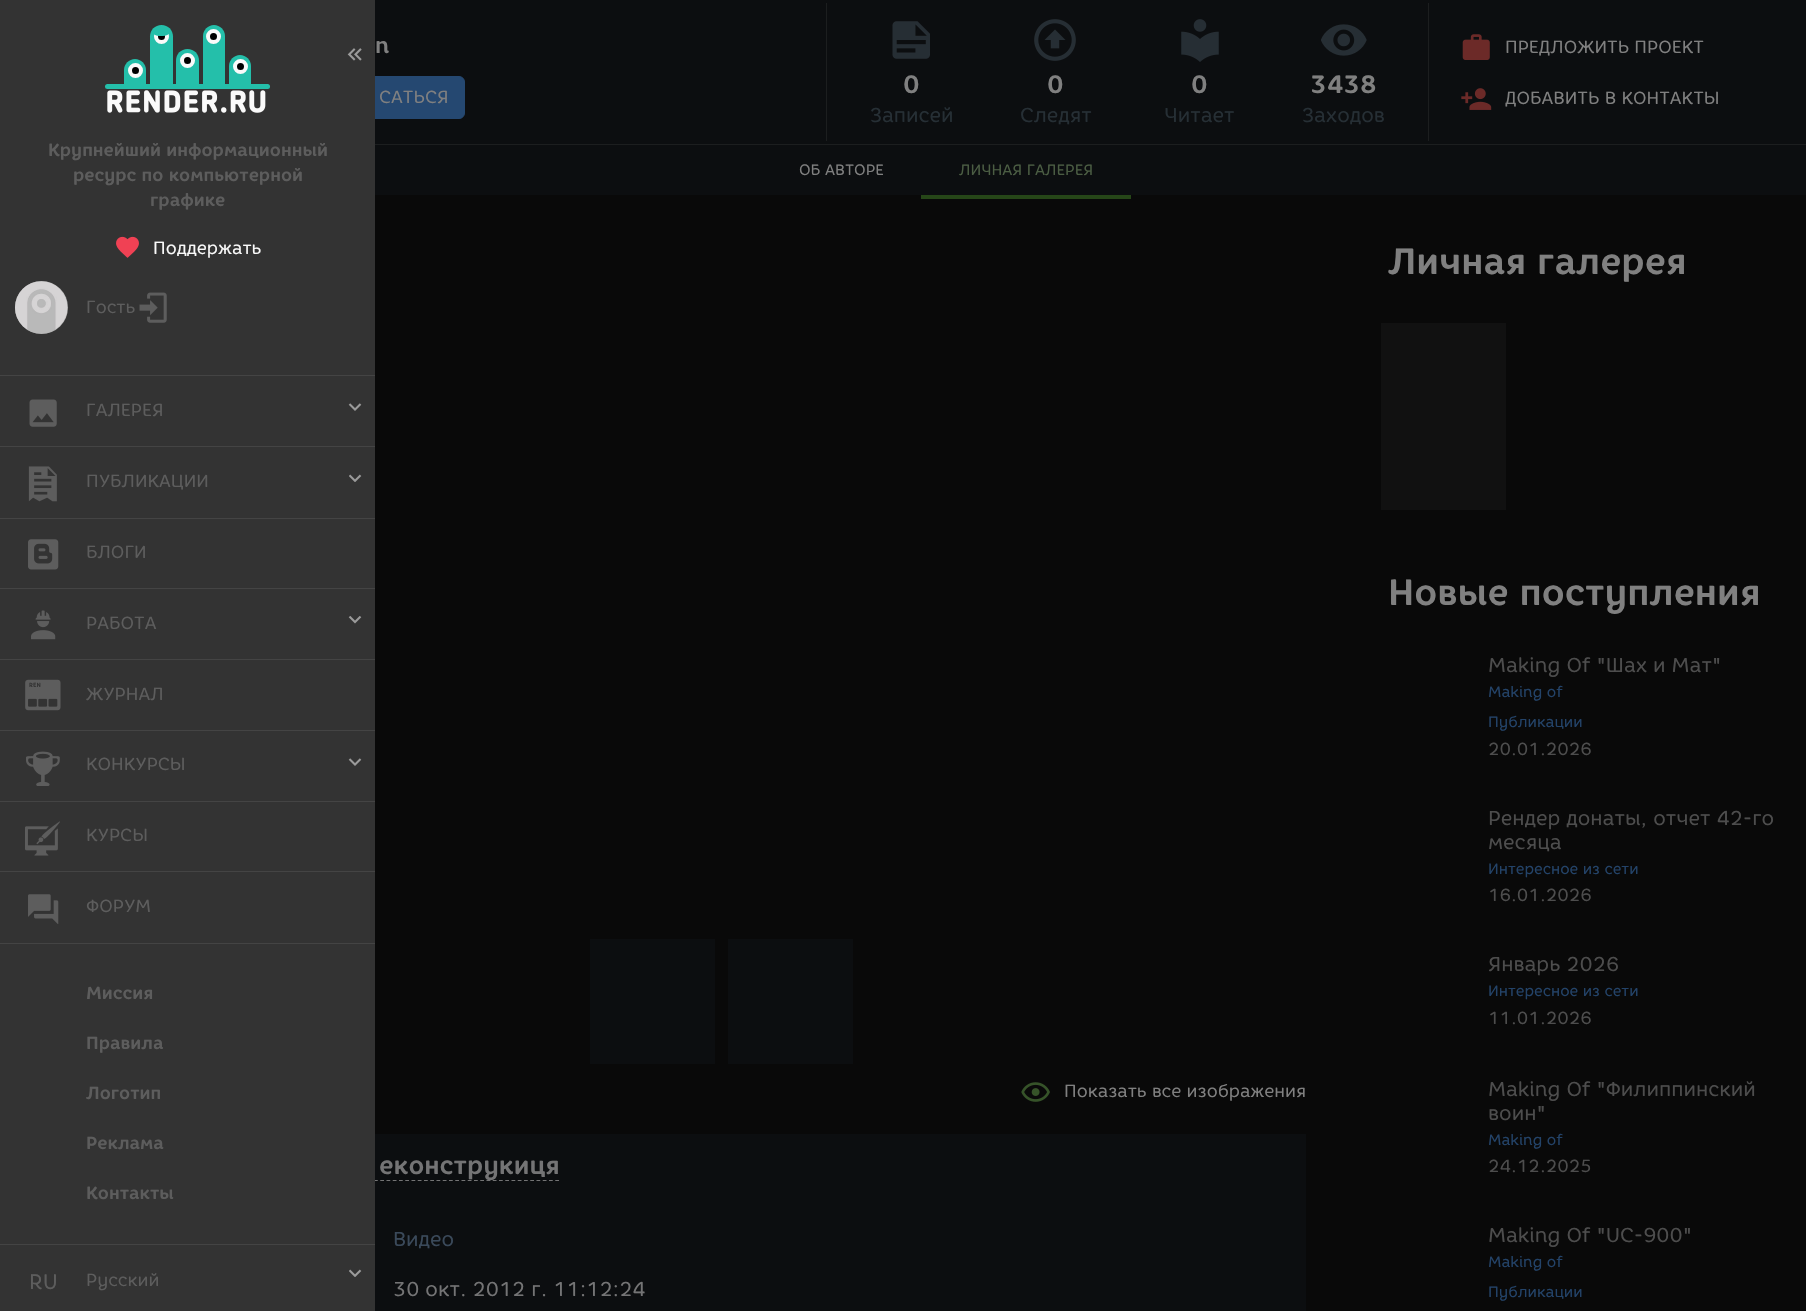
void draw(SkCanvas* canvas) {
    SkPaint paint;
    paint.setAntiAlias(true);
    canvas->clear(0xFF090909);
    paint.setColor(0xFF0C0E10);
    canvas->drawRect(SkRect::MakeXYWH(375, 0, 1431, 144), paint);
    paint.setColor(0xFF254871);
    canvas->drawRoundRect(SkRect::MakeXYWH(269.5f, 76.5f, 195, 42), 5.5f, 5.5f, paint);
    paint.setStyle(SkPaint::kStroke_Style);
    paint.setStrokeWidth(1);
    canvas->drawRoundRect(SkRect::MakeXYWH(269.5f, 76.5f, 195, 42), 5.5f, 5.5f, paint);
    paint.setStyle(SkPaint::kFill_Style);
    paint.setColor(0xFF0C0E10);
    canvas->drawRect(SkRect::MakeXYWH(375, 1134, 931, 177), paint);
    paint.setStyle(SkPaint::kStroke_Style);
    paint.setStrokeWidth(1.2f);
    paint.setColor(0xFF747475);
    paint.setPathEffect(SkDashPathEffect::Make({{3.75f, 2.5f}}, 0));
    canvas->drawPath(SkPathBuilder().moveTo(174, 1180.5f).lineTo(559, 1180.5f).detach(), paint);
    paint.setPathEffect(nullptr);
    paint.setStyle(SkPaint::kFill_Style);
    paint.setColor(0xFF333333);
    canvas->drawRect(SkRect::MakeXYWH(0, 0, 375, 1311), paint);
    canvas->drawImageRect(SkImages::DeferredFromEncodedData(SkData::MakeFromFileName("img1.png")), SkRect::MakeXYWH(347, 48, 15, 13), SkSamplingOptions());
    canvas->drawImageRect(SkImages::DeferredFromEncodedData(SkData::MakeFromFileName("img2.png")), SkRect::MakeXYWH(107, 90, 159, 23), SkSamplingOptions());
    paint.setColor(0xFF24BFAA);
    canvas->drawRoundRect(SkRect::MakeXYWH(105, 84, 165, 5), 2.5f, 2.5f, paint);
    canvas->drawPath(SkPathBuilder().moveTo(135, 59).cubicTo(141, 59, 146, 64, 146, 70).lineTo(146, 89).lineTo(124, 89).lineTo(124, 70).cubicTo(124, 64, 129, 59, 135, 59).close().detach(), paint);
    paint.setColor(0xFF000000);
    canvas->drawCircle(135.5f, 70.5f, 5.5f, paint);
    paint.setStyle(SkPaint::kStroke_Style);
    paint.setStrokeWidth(4);
    paint.setColor(0xFFFAFAFA);
    canvas->drawCircle(135.5f, 70.5f, 5.5f, paint);
    paint.setStyle(SkPaint::kFill_Style);
    paint.setColor(0xFF24BFAA);
    canvas->drawPath(SkPathBuilder().moveTo(161.5f, 25).cubicTo(168, 25, 173, 30, 173, 36.5f).lineTo(173, 89).lineTo(150, 89).lineTo(150, 36.5f).cubicTo(150, 30, 155, 25, 161.5f, 25).close().detach(), paint);
    paint.setColor(0xFF000000);
    canvas->drawCircle(161.5f, 36.5f, 5.5f, paint);
    paint.setStyle(SkPaint::kStroke_Style);
    paint.setColor(0xFFFAFAFA);
    canvas->drawCircle(161.5f, 36.5f, 5.5f, paint);
    paint.setStyle(SkPaint::kFill_Style);
    paint.setColor(0xFF24BFAA);
    canvas->drawPath(SkPathBuilder().moveTo(161, 27.5f).cubicTo(173, 27.5f, 173, 36, 161, 36).cubicTo(149.5f, 36, 149.5f, 27.5f, 161, 27.5f).close().detach(), paint);
    canvas->drawPath(SkPathBuilder().moveTo(187.5f, 49).cubicTo(194, 49, 199, 54, 199, 60.5f).lineTo(199, 89).lineTo(176, 89).lineTo(176, 60.5f).cubicTo(176, 54, 181, 49, 187.5f, 49).close().detach(), paint);
    paint.setColor(0xFF000000);
    canvas->drawCircle(187.5f, 60.5f, 5.5f, paint);
    paint.setStyle(SkPaint::kStroke_Style);
    paint.setColor(0xFFFAFAFA);
    canvas->drawCircle(187.5f, 60.5f, 5.5f, paint);
    paint.setStyle(SkPaint::kFill_Style);
    paint.setColor(0xFF24BFAA);
    canvas->drawPath(SkPathBuilder().moveTo(214, 25).cubicTo(220, 25, 225, 30, 225, 36).lineTo(225, 89).lineTo(203, 89).lineTo(203, 36).cubicTo(203, 30, 208, 25, 214, 25).close().detach(), paint);
    paint.setColor(0xFF000000);
    canvas->drawCircle(213.5f, 36.5f, 5.5f, paint);
    paint.setStyle(SkPaint::kStroke_Style);
    paint.setColor(0xFFFAFAFA);
    canvas->drawCircle(213.5f, 36.5f, 5.5f, paint);
    paint.setStyle(SkPaint::kFill_Style);
    paint.setColor(0xFF24BFAA);
    canvas->drawPath(SkPathBuilder().moveTo(240, 55).cubicTo(246, 55, 251, 60, 251, 66).lineTo(251, 89).lineTo(229, 89).lineTo(229, 66).cubicTo(229, 60, 234, 55, 240, 55).close().detach(), paint);
    paint.setColor(0xFF000000);
    canvas->drawCircle(240.5f, 66.5f, 5.5f, paint);
    paint.setStyle(SkPaint::kStroke_Style);
    paint.setColor(0xFFFAFAFA);
    canvas->drawCircle(240.5f, 66.5f, 5.5f, paint);
    SkFont font1(fontMgr->matchFamilyStyle("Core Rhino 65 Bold", SkFontStyle::Bold()), 17.5f);
    font1.setSubpixel(true);
    paint.setStyle(SkPaint::kFill_Style);
    paint.setColor(0xFF5D5D5D);
    canvas->drawString("Крупнейший информационный", 48, 156, font1, paint);
    canvas->drawString("ресурс по компьютерной", 73, 181, font1, paint);
    canvas->drawString("графике", 150, 206, font1, paint);
    canvas->drawImageRect(SkImages::DeferredFromEncodedData(SkData::MakeFromFileName("img3.png")), SkRect::MakeXYWH(116, 236, 23, 22), SkSamplingOptions());
    SkFont font2(fontMgr->matchFamilyStyle("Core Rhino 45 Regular", SkFontStyle::Normal()), 17.5f);
    font2.setSubpixel(true);
    paint.setColor(0xFFFAFAFA);
    canvas->drawString("Поддержать", 153, 254, font2, paint);
    paint.setColor(0xFFAAAAAA);
    canvas->drawCircle(41.5f, 307.5f, 26.5f, paint);
    canvas->drawImageRect(SkImages::DeferredFromEncodedData(SkData::MakeFromFileName("img4.png")), SkRect::MakeXYWH(15, 281, 53, 53), SkSamplingOptions());
    paint.setColor(0xFF5D5D5D);
    canvas->drawString("Гость", 86, 313, font2, paint);
    canvas->drawImageRect(SkImages::DeferredFromEncodedData(SkData::MakeFromFileName("img5.png")), SkRect::MakeXYWH(139, 292, 28, 31), SkSamplingOptions());
    paint.setColor(0xFF444444);
    canvas->drawRect(SkRect::MakeXYWH(0, 375, 375, 1), paint);
    canvas->drawImageRect(SkImages::DeferredFromEncodedData(SkData::MakeFromFileName("img6.png")), SkRect::MakeXYWH(29, 399, 28, 28), SkSamplingOptions());
    paint.setColor(0xFF5D5D5D);
    canvas->drawString("ГАЛЕРЕЯ", 86, 416, font2, paint);
    canvas->drawImageRect(SkImages::DeferredFromEncodedData(SkData::MakeFromFileName("img7.png")), SkRect::MakeXYWH(348, 403, 14, 8), SkSamplingOptions());
    paint.setColor(0xFF444444);
    canvas->drawRect(SkRect::MakeXYWH(0, 446, 375, 1), paint);
    canvas->drawImageRect(SkImages::DeferredFromEncodedData(SkData::MakeFromFileName("img8.png")), SkRect::MakeXYWH(28, 466, 29, 36), SkSamplingOptions());
    paint.setColor(0xFF5D5D5D);
    canvas->drawString("ПУБЛИКАЦИИ", 86, 487, font2, paint);
    canvas->drawImageRect(SkImages::DeferredFromEncodedData(SkData::MakeFromFileName("img9.png")), SkRect::MakeXYWH(349, 474, 13, 8), SkSamplingOptions());
    paint.setColor(0xFF444444);
    canvas->drawRect(SkRect::MakeXYWH(0, 518, 375, 1), paint);
    canvas->drawImageRect(SkImages::DeferredFromEncodedData(SkData::MakeFromFileName("img10.png")), SkRect::MakeXYWH(28, 539, 31, 31), SkSamplingOptions());
    paint.setColor(0xFF5D5D5D);
    canvas->drawString("БЛОГИ", 86, 558, font2, paint);
    paint.setColor(0xFF444444);
    canvas->drawRect(SkRect::MakeXYWH(0, 588, 375, 1), paint);
    canvas->drawImageRect(SkImages::DeferredFromEncodedData(SkData::MakeFromFileName("img11.png")), SkRect::MakeXYWH(31, 610, 25, 30), SkSamplingOptions());
    paint.setColor(0xFF5D5D5D);
    canvas->drawString("РАБОТА", 86, 629, font2, paint);
    canvas->drawImageRect(SkImages::DeferredFromEncodedData(SkData::MakeFromFileName("img12.png")), SkRect::MakeXYWH(348, 616, 14, 8), SkSamplingOptions());
    paint.setColor(0xFF444444);
    canvas->drawRect(SkRect::MakeXYWH(0, 659, 375, 1), paint);
    canvas->drawImageRect(SkImages::DeferredFromEncodedData(SkData::MakeFromFileName("img13.png")), SkRect::MakeXYWH(25, 679, 36, 32), SkSamplingOptions());
    SkFont font3(fontMgr->matchFamilyStyle("Core Rhino 65 Bold", SkFontStyle::Bold()), 6);
    font3.setSubpixel(true);
    paint.setColor(0xFF333333);
    canvas->drawString("REN", 29, 687, font3, paint);
    paint.setColor(0xFF5D5D5D);
    canvas->drawString("ЖУРНАЛ", 86, 700, font2, paint);
    paint.setColor(0xFF444444);
    canvas->drawRect(SkRect::MakeXYWH(0, 730, 375, 1), paint);
    canvas->drawImageRect(SkImages::DeferredFromEncodedData(SkData::MakeFromFileName("img14.png")), SkRect::MakeXYWH(26, 751, 34, 35), SkSamplingOptions());
    paint.setColor(0xFF5D5D5D);
    canvas->drawString("КОНКУРСЫ", 86, 770, font2, paint);
    canvas->drawImageRect(SkImages::DeferredFromEncodedData(SkData::MakeFromFileName("img7.png")), SkRect::MakeXYWH(348, 758, 14, 8), SkSamplingOptions());
    paint.setColor(0xFF444444);
    canvas->drawRect(SkRect::MakeXYWH(0, 801, 375, 1), paint);
    canvas->drawImageRect(SkImages::DeferredFromEncodedData(SkData::MakeFromFileName("img15.png")), SkRect::MakeXYWH(25, 821, 35, 35), SkSamplingOptions());
    paint.setColor(0xFF5D5D5D);
    canvas->drawString("КУРСЫ", 86, 841, font2, paint);
    paint.setColor(0xFF444444);
    canvas->drawRect(SkRect::MakeXYWH(0, 871, 375, 1), paint);
    canvas->drawImageRect(SkImages::DeferredFromEncodedData(SkData::MakeFromFileName("img16.png")), SkRect::MakeXYWH(28, 894, 31, 30), SkSamplingOptions());
    paint.setColor(0xFF5D5D5D);
    canvas->drawString("ФОРУМ", 86, 912, font2, paint);
    paint.setColor(0xFF444444);
    canvas->drawRect(SkRect::MakeXYWH(0, 943, 375, 1), paint);
    paint.setColor(0xFF5D5D5D);
    canvas->drawString("Миссия", 86, 999, font1, paint);
    canvas->drawString("Правила", 86, 1049, font1, paint);
    canvas->drawString("Логотип", 86, 1099, font1, paint);
    canvas->drawString("Реклама", 86, 1149, font1, paint);
    canvas->drawString("Контакты", 86, 1199, font1, paint);
    paint.setColor(0xFF444444);
    canvas->drawRect(SkRect::MakeXYWH(0, 1244, 375, 1), paint);
    SkFont font4(fontMgr->matchFamilyStyle("Core Rhino 45 Regular", SkFontStyle::Normal()), 21);
    font4.setSubpixel(true);
    paint.setColor(0xFF5D5D5D);
    canvas->drawString("RU", 29, 1289, font4, paint);
    canvas->drawString("Русский", 86, 1286, font2, paint);
    canvas->drawImageRect(SkImages::DeferredFromEncodedData(SkData::MakeFromFileName("img9.png")), SkRect::MakeXYWH(349, 1269, 13, 8), SkSamplingOptions());
    SkFont font5(fontMgr->matchFamilyStyle("Core Rhino 65 Bold", SkFontStyle::Bold()), 22);
    font5.setSubpixel(true);
    paint.setColor(0xFF808080);
    canvas->drawString("n", 375, 53, font5, paint);
    canvas->drawString("САТЬСЯ", 379, 103, font2, paint);
    paint.setColor(0xFF1C1E1F);
    canvas->drawRect(SkRect::MakeXYWH(826, 3, 1, 138), paint);
    canvas->drawImageRect(SkImages::DeferredFromEncodedData(SkData::MakeFromFileName("img17.png")), SkRect::MakeXYWH(892, 21, 38, 38), SkSamplingOptions());
    SkFont font6(fontMgr->matchFamilyStyle("Core Rhino 65 Bold", SkFontStyle::Bold()), 25);
    font6.setSubpixel(true);
    paint.setColor(0xFF808080);
    canvas->drawString("0", 903, 93, font6, paint);
    SkFont font7(fontMgr->matchFamilyStyle("Core Rhino 45 Regular", SkFontStyle::Normal()), 20);
    font7.setSubpixel(true);
    paint.setColor(0xFF262F35);
    canvas->drawString("Записей", 870, 122, font7, paint);
    canvas->drawImageRect(SkImages::DeferredFromEncodedData(SkData::MakeFromFileName("img18.png")), SkRect::MakeXYWH(1034, 19, 42, 42), SkSamplingOptions());
    paint.setColor(0xFF808080);
    canvas->drawString("0", 1047, 93, font6, paint);
    paint.setColor(0xFF262F35);
    canvas->drawString("Следят", 1020, 122, font7, paint);
    canvas->drawImageRect(SkImages::DeferredFromEncodedData(SkData::MakeFromFileName("img19.png")), SkRect::MakeXYWH(1181, 19, 38, 43), SkSamplingOptions());
    paint.setColor(0xFF808080);
    canvas->drawString("0", 1191, 93, font6, paint);
    paint.setColor(0xFF262F35);
    canvas->drawString("Читает", 1164, 122, font7, paint);
    canvas->drawImageRect(SkImages::DeferredFromEncodedData(SkData::MakeFromFileName("img20.png")), SkRect::MakeXYWH(1321, 24, 46, 32), SkSamplingOptions());
    paint.setColor(0xFF808080);
    canvas->drawString("3438", 1310, 93, font6, paint);
    paint.setColor(0xFF262F35);
    canvas->drawString("Заходов", 1302, 122, font7, paint);
    paint.setColor(0xFF1C1E1F);
    canvas->drawRect(SkRect::MakeXYWH(1428, 3, 1, 138), paint);
    canvas->drawImageRect(SkImages::DeferredFromEncodedData(SkData::MakeFromFileName("img21.png")), SkRect::MakeXYWH(1462, 34, 28, 26), SkSamplingOptions());
    paint.setColor(0xFF808080);
    canvas->drawString("ПРЕДЛОЖИТЬ ПРОЕКТ", 1505, 53, font2, paint);
    canvas->drawImageRect(SkImages::DeferredFromEncodedData(SkData::MakeFromFileName("img22.png")), SkRect::MakeXYWH(1461, 88, 31, 22), SkSamplingOptions());
    canvas->drawString("ДОБАВИТЬ В КОНТАКТЫ", 1505, 104, font2, paint);
    paint.setColor(0xFF1C1E1F);
    canvas->drawRect(SkRect::MakeXYWH(375, 144, 1431, 1), paint);
    paint.setColor(0xFF0C0E10);
    canvas->drawRect(SkRect::MakeXYWH(375, 145, 1431, 50), paint);
    SkFont font8(fontMgr->matchFamilyStyle("Core Rhino 45 Regular", SkFontStyle::Normal()), 15);
    font8.setSubpixel(true);
    paint.setColor(0xFF808080);
    canvas->drawString("ОБ АВТОРЕ", 799, 175, font8, paint);
    paint.setColor(0xFF264618);
    canvas->drawRect(SkRect::MakeXYWH(921, 195, 210, 4), paint);
    paint.setColor(0xFF4B5D43);
    canvas->drawString("ЛИЧНАЯ ГАЛЕРЕЯ", 959, 175, font8, paint);
    paint.setColor(0xFF0C0E10);
    canvas->drawRect(SkRect::MakeXYWH(590, 939, 125, 125), paint);
    canvas->drawRect(SkRect::MakeXYWH(728, 939, 125, 125), paint);
    canvas->drawImageRect(SkImages::DeferredFromEncodedData(SkData::MakeFromFileName("img23.png")), SkRect::MakeXYWH(1021, 1082, 29, 20), SkSamplingOptions());
    paint.setColor(0xFF808080);
    canvas->drawString("Показать все изображения", 1064, 1097, font2, paint);
    paint.setColor(0xFF747475);
    canvas->drawString("еконструкиця", 379, 1174, font6, paint);
    paint.setColor(0xFF3A495A);
    canvas->drawString("Видео", 393, 1246, font7, paint);
    paint.setColor(0xFF747475);
    canvas->drawString("30 окт. 2012 г. 11:12:24", 393, 1296, font7, paint);
    SkFont font9(fontMgr->matchFamilyStyle("Core Rhino 65 Bold", SkFontStyle::Bold()), 36.25f);
    font9.setSubpixel(true);
    paint.setColor(0xFF808080);
    canvas->drawString("Личная галерея", 1388, 274, font9, paint);
    paint.setColor(0xFF111111);
    canvas->drawRect(SkRect::MakeXYWH(1381, 323, 125, 187), paint);
    paint.setColor(0xFF808080);
    canvas->drawString("Новые поступления", 1388, 605, font9, paint);
    paint.setColor(0xFF4D4D4D);
    canvas->drawString("Making Of \"Шах и Мат\"", 1488, 672, font7, paint);
    paint.setColor(0xFF234369);
    canvas->drawString("Making of", 1488, 697, font8, paint);
    canvas->drawString("Публикации", 1488, 727, font8, paint);
    paint.setColor(0xFF4D4D4D);
    canvas->drawString("20.01.2026", 1488, 755, font2, paint);
    canvas->drawString("Рендер донаты, отчет 42-го", 1488, 825, font7, paint);
    canvas->drawString("месяца", 1488, 849, font7, paint);
    paint.setColor(0xFF234369);
    canvas->drawString("Интересное из сети", 1488, 874, font8, paint);
    paint.setColor(0xFF4D4D4D);
    canvas->drawString("16.01.2026", 1488, 901, font2, paint);
    canvas->drawString("Январь 2026", 1488, 971, font7, paint);
    paint.setColor(0xFF234369);
    canvas->drawString("Интересное из сети", 1488, 996, font8, paint);
    paint.setColor(0xFF4D4D4D);
    canvas->drawString("11.01.2026", 1488, 1024, font2, paint);
    canvas->drawString("Making Of \"Филиппинский", 1488, 1096, font7, paint);
    canvas->drawString("воин\"", 1488, 1120, font7, paint);
    paint.setColor(0xFF234369);
    canvas->drawString("Making of", 1488, 1145, font8, paint);
    paint.setColor(0xFF4D4D4D);
    canvas->drawString("24.12.2025", 1488, 1172, font2, paint);
    canvas->drawString("Making Of \"UC-900\"", 1488, 1242, font7, paint);
    paint.setColor(0xFF234369);
    canvas->drawString("Making of", 1488, 1267, font8, paint);
    canvas->drawString("Публикации", 1488, 1297, font8, paint);
}
